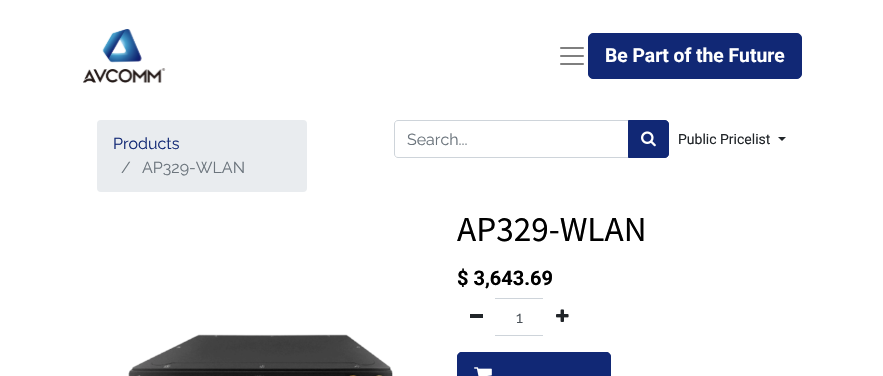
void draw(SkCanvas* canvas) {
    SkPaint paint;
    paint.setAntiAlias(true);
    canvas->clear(0xFFFFFFFF);
    canvas->drawImageRect(SkImages::DeferredFromEncodedData(SkData::MakeFromFileName("img1.png")), SkRect::MakeXYWH(83, 29, 83, 54), SkSamplingOptions());
    canvas->drawImageRect(SkImages::DeferredFromEncodedData(SkData::MakeFromFileName("img2.png")), SkRect::MakeXYWH(560, 47, 24, 18), SkSamplingOptions());
    paint.setColor(0xFF112875);
    canvas->drawRoundRect(SkRect::MakeXYWH(588.5f, 33.5f, 213, 45), 4.5f, 4.5f, paint);
    paint.setStyle(SkPaint::kStroke_Style);
    paint.setStrokeWidth(1);
    canvas->drawRoundRect(SkRect::MakeXYWH(588.5f, 33.5f, 213, 45), 4.5f, 4.5f, paint);
    SkFont font1(fontMgr->matchFamilyStyle("Roboto", SkFontStyle::Bold()), 19.25f);
    font1.setSubpixel(true);
    paint.setStyle(SkPaint::kFill_Style);
    paint.setColor(0xFFFFFFFF);
    canvas->drawString("Be Part of the Future", 605, 62, font1, paint);
    paint.setColor(0xFFE9ECEF);
    canvas->drawRoundRect(SkRect::MakeXYWH(97, 120, 210, 72), 4, 4, paint);
    SkFont font2(fontMgr->matchFamilyStyle("Raleway", SkFontStyle::Normal()), 16);
    font2.setSubpixel(true);
    paint.setColor(0xFF112875);
    canvas->drawString("Products", 113, 149, font2, paint);
    paint.setColor(0xFF6C757D);
    canvas->drawString("/", 121, 173, font2, paint);
    canvas->drawString("AP329-WLAN", 142, 173, font2, paint);
    paint.setStyle(SkPaint::kStroke_Style);
    paint.setColor(0xFFCED4DA);
    canvas->drawPath(SkPathBuilder().moveTo(398, 120.5f).lineTo(628.5f, 120.5f).lineTo(628.5f, 157.5f).lineTo(398, 157.5f).cubicTo(396, 157.5f, 394.5f, 156, 394.5f, 154).lineTo(394.5f, 124).cubicTo(394.5f, 122, 396, 120.5f, 398, 120.5f).close().detach(), paint);
    paint.setStyle(SkPaint::kFill_Style);
    paint.setColor(0xFF6C757D);
    canvas->drawString("Search...", 407, 145, font2, paint);
    paint.setColor(0xFF112875);
    canvas->drawPath(SkPathBuilder().moveTo(628.5f, 120.5f).lineTo(665, 120.5f).cubicTo(667, 120.5f, 668.5f, 122, 668.5f, 124).lineTo(668.5f, 154).cubicTo(668.5f, 156, 667, 157.5f, 665, 157.5f).lineTo(628.5f, 157.5f).close().detach(), paint);
    paint.setStyle(SkPaint::kStroke_Style);
    canvas->drawPath(SkPathBuilder().moveTo(628.5f, 120.5f).lineTo(665, 120.5f).cubicTo(667, 120.5f, 668.5f, 122, 668.5f, 124).lineTo(668.5f, 154).cubicTo(668.5f, 156, 667, 157.5f, 665, 157.5f).lineTo(628.5f, 157.5f).close().detach(), paint);
    canvas->drawImageRect(SkImages::DeferredFromEncodedData(SkData::MakeFromFileName("img3.png")), SkRect::MakeXYWH(641, 131, 15, 16), SkSamplingOptions());
    SkFont font3(fontMgr->matchFamilyStyle("Roboto", SkFontStyle::Normal()), 14);
    font3.setSubpixel(true);
    paint.setStyle(SkPaint::kFill_Style);
    paint.setColor(0xFF212529);
    canvas->drawString("Public Pricelist", 678, 144, font3, paint);
    canvas->drawPath(SkPathBuilder().moveTo(778, 137).lineTo(786, 137).lineTo(782, 141).close().detach(), paint);
    SkFont font4(fontMgr->matchFamilyStyle("Source Sans Pro", SkFontStyle::Normal()), 35.25f);
    font4.setSubpixel(true);
    paint.setColor(0xFF000000);
    canvas->drawString("AP329-WLAN", 457, 241, font4, paint);
    SkFont font5(fontMgr->matchFamilyStyle("Roboto", SkFontStyle::Bold()), 20);
    font5.setSubpixel(true);
    canvas->drawString("$ 3,643.69", 457, 285, font5, paint);
    paint.setStyle(SkPaint::kStroke_Style);
    paint.setColor(0xFFCED4DA);
    canvas->drawRect(SkRect::MakeXYWH(494.5f, 298.5f, 49, 37), paint);
    paint.setStyle(SkPaint::kFill_Style);
    paint.setColor(0xFFFFFFFF);
    canvas->drawPath(SkPathBuilder().moveTo(461, 298).lineTo(495, 298).lineTo(495, 336).lineTo(461, 336).cubicTo(459, 336, 457, 334, 457, 332).lineTo(457, 302).cubicTo(457, 300, 459, 298, 461, 298).close().detach(), paint);
    paint.setColor(0xFF212529);
    canvas->drawRect(SkRect::MakeXYWH(470, 314, 13, 4), paint);
    paint.setColor(0xFF495057);
    canvas->drawString("1", 516, 323, font2, paint);
    paint.setColor(0xFFFFFFFF);
    canvas->drawPath(SkPathBuilder().moveTo(543, 298).lineTo(578, 298).cubicTo(580, 298, 582, 300, 582, 302).lineTo(582, 332).cubicTo(582, 334, 580, 336, 578, 336).lineTo(543, 336).close().detach(), paint);
    canvas->drawImageRect(SkImages::DeferredFromEncodedData(SkData::MakeFromFileName("img4.png")), SkRect::MakeXYWH(556, 309, 13, 13), SkSamplingOptions());
    paint.setColor(0xFF112875);
    canvas->drawPath(SkPathBuilder().moveTo(462, 352).lineTo(606, 352).cubicTo(609, 352, 611, 354, 611, 357).lineTo(611, 376).lineTo(457, 376).lineTo(457, 357).cubicTo(457, 354, 459, 352, 462, 352).close().detach(), paint);
    paint.setStyle(SkPaint::kStroke_Style);
    canvas->drawRoundRect(SkRect::MakeXYWH(457.5f, 352.5f, 153, 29), 4.5f, 4.5f, paint);
    canvas->drawImageRect(SkImages::DeferredFromEncodedData(SkData::MakeFromFileName("img5.png")), SkRect::MakeXYWH(474, 367, 18, 9), SkSamplingOptions());
    canvas->drawImageRect(SkImages::DeferredFromEncodedData(SkData::MakeFromFileName("img6.png")), SkRect::MakeXYWH(128, 334, 265, 42), SkSamplingOptions());
}
